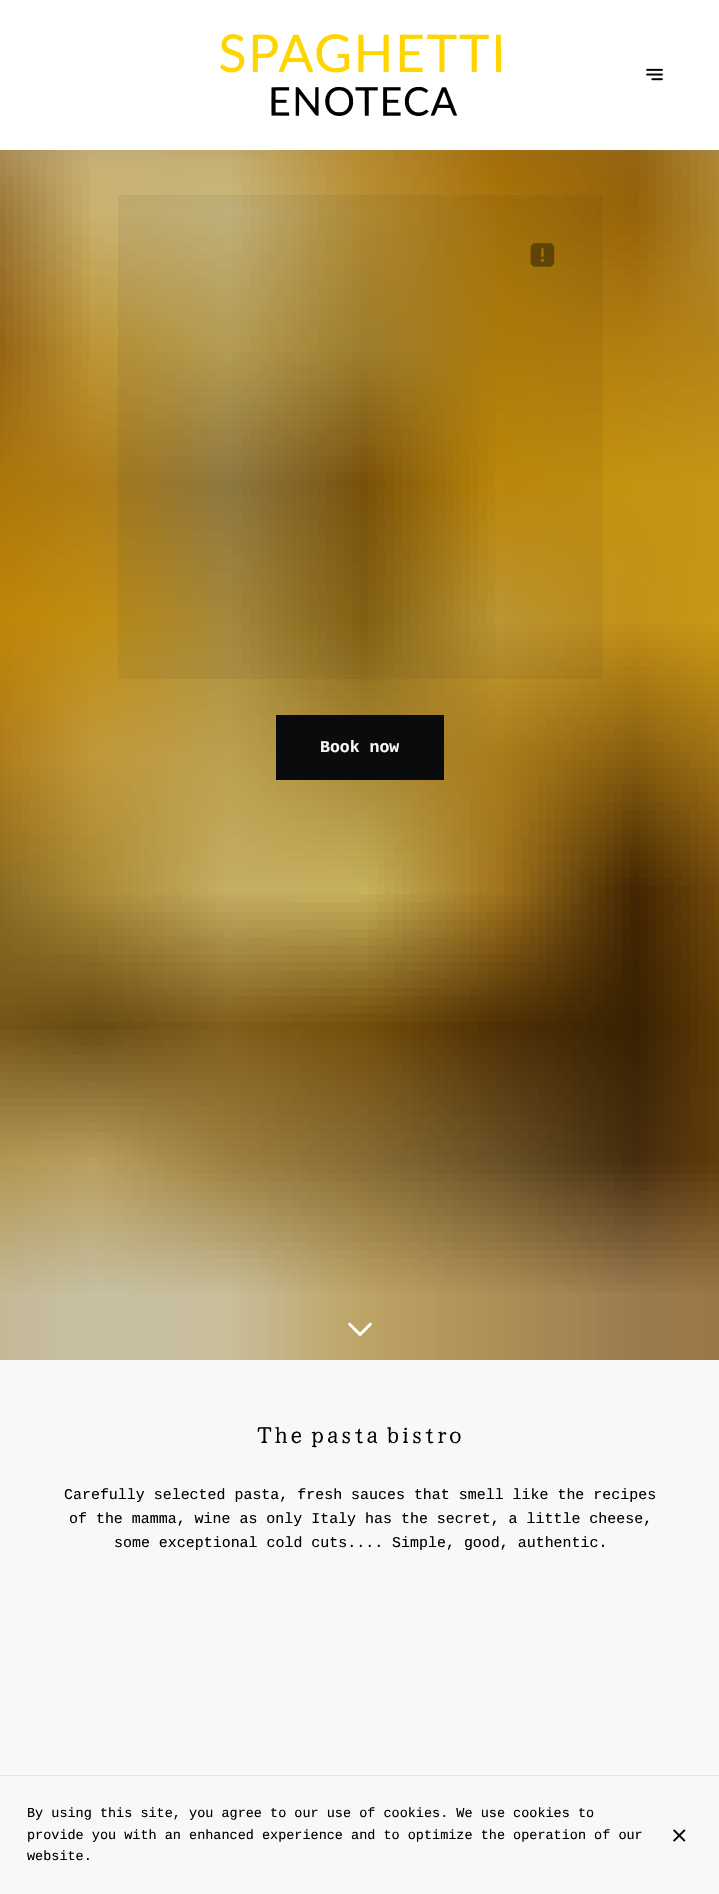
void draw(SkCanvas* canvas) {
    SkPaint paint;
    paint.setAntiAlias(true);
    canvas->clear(0xFFF8F8F8);
    canvas->drawImageRect(SkImages::DeferredFromEncodedData(SkData::MakeFromFileName("img3.png")), SkRect::MakeXYWH(0, 150, 719, 1210), SkSamplingOptions());
    paint.setColor(0x267F7F7F);
    paint.setMaskFilter(SkMaskFilter::MakeBlur(kNormal_SkBlurStyle, 6));
    canvas->drawRect(SkRect::MakeXYWH(3, 3, 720, 150), paint);
    paint.setMaskFilter(nullptr);
    paint.setColor(0xFFFFFFFF);
    canvas->drawRect(SkRect::MakeXYWH(0, 0, 719, 150), paint);
    canvas->drawImageRect(SkImages::DeferredFromEncodedData(SkData::MakeFromFileName("img1.png")), SkRect::MakeXYWH(220, 34, 281, 82), SkSamplingOptions());
    canvas->drawImageRect(SkImages::DeferredFromEncodedData(SkData::MakeFromFileName("img2.png")), SkRect::MakeXYWH(646, 68, 17, 13), SkSamplingOptions());
    paint.setColor(0x0D010101);
    canvas->drawRect(SkRect::MakeXYWH(118, 195, 485, 484), paint);
    canvas->drawImageRect(SkImages::DeferredFromEncodedData(SkData::MakeFromFileName("img4.png")), SkRect::MakeXYWH(530, 243, 25, 24), SkSamplingOptions());
    paint.setColor(0xFF090B0D);
    canvas->drawRect(SkRect::MakeXYWH(276, 715, 168, 65), paint);
    SkFont font1(fontMgr->matchFamilyStyle("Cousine", SkFontStyle::Bold()), 16.5f);
    font1.setSubpixel(true);
    paint.setColor(0xFFF8F8F8);
    canvas->drawString("Book now", 320, 752, font1, paint);
    canvas->drawImageRect(SkImages::DeferredFromEncodedData(SkData::MakeFromFileName("img5.png")), SkRect::MakeXYWH(348, 1322, 24, 14), SkSamplingOptions());
    SkFont font2(fontMgr->matchFamilyStyle("Yuji Syuku", SkFontStyle::Normal()), 24.25f);
    font2.setSubpixel(true);
    paint.setColor(0xFF010101);
    canvas->drawString("The pasta bistro", 256, 1443, font2, paint);
    SkFont font3(fontMgr->matchFamilyStyle("Cousine", SkFontStyle::Normal()), 14.95f);
    font3.setSubpixel(true);
    canvas->drawString("Carefully selected pasta, fresh sauces that smell like the recipes", 64, 1499, font3, paint);
    canvas->drawString("of the mamma, wine as only Italy has the secret, a little cheese,", 69, 1523, font3, paint);
    canvas->drawString("some exceptional cold cuts.... Simple, good, authentic.", 114, 1547, font3, paint);
    paint.setStyle(SkPaint::kStroke_Style);
    paint.setStrokeWidth(1);
    paint.setColor(0xFFE4E4E4);
    canvas->drawRect(SkRect::MakeXYWH(-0.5f, 1775.5f, 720, 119), paint);
    SkFont font4(fontMgr->matchFamilyStyle("Cousine", SkFontStyle::Normal()), 13.5f);
    font4.setSubpixel(true);
    paint.setStyle(SkPaint::kFill_Style);
    paint.setColor(0xFF010101);
    canvas->drawString("By using this site, you agree to our use of cookies. We use cookies to", 27, 1817, font4, paint);
    canvas->drawString("provide you with an enhanced experience and to optimize the operation of our", 27, 1839, font4, paint);
    canvas->drawString("website.", 27, 1860, font4, paint);
    canvas->drawImageRect(SkImages::DeferredFromEncodedData(SkData::MakeFromFileName("img6.png")), SkRect::MakeXYWH(673, 1829, 13, 13), SkSamplingOptions());
}
